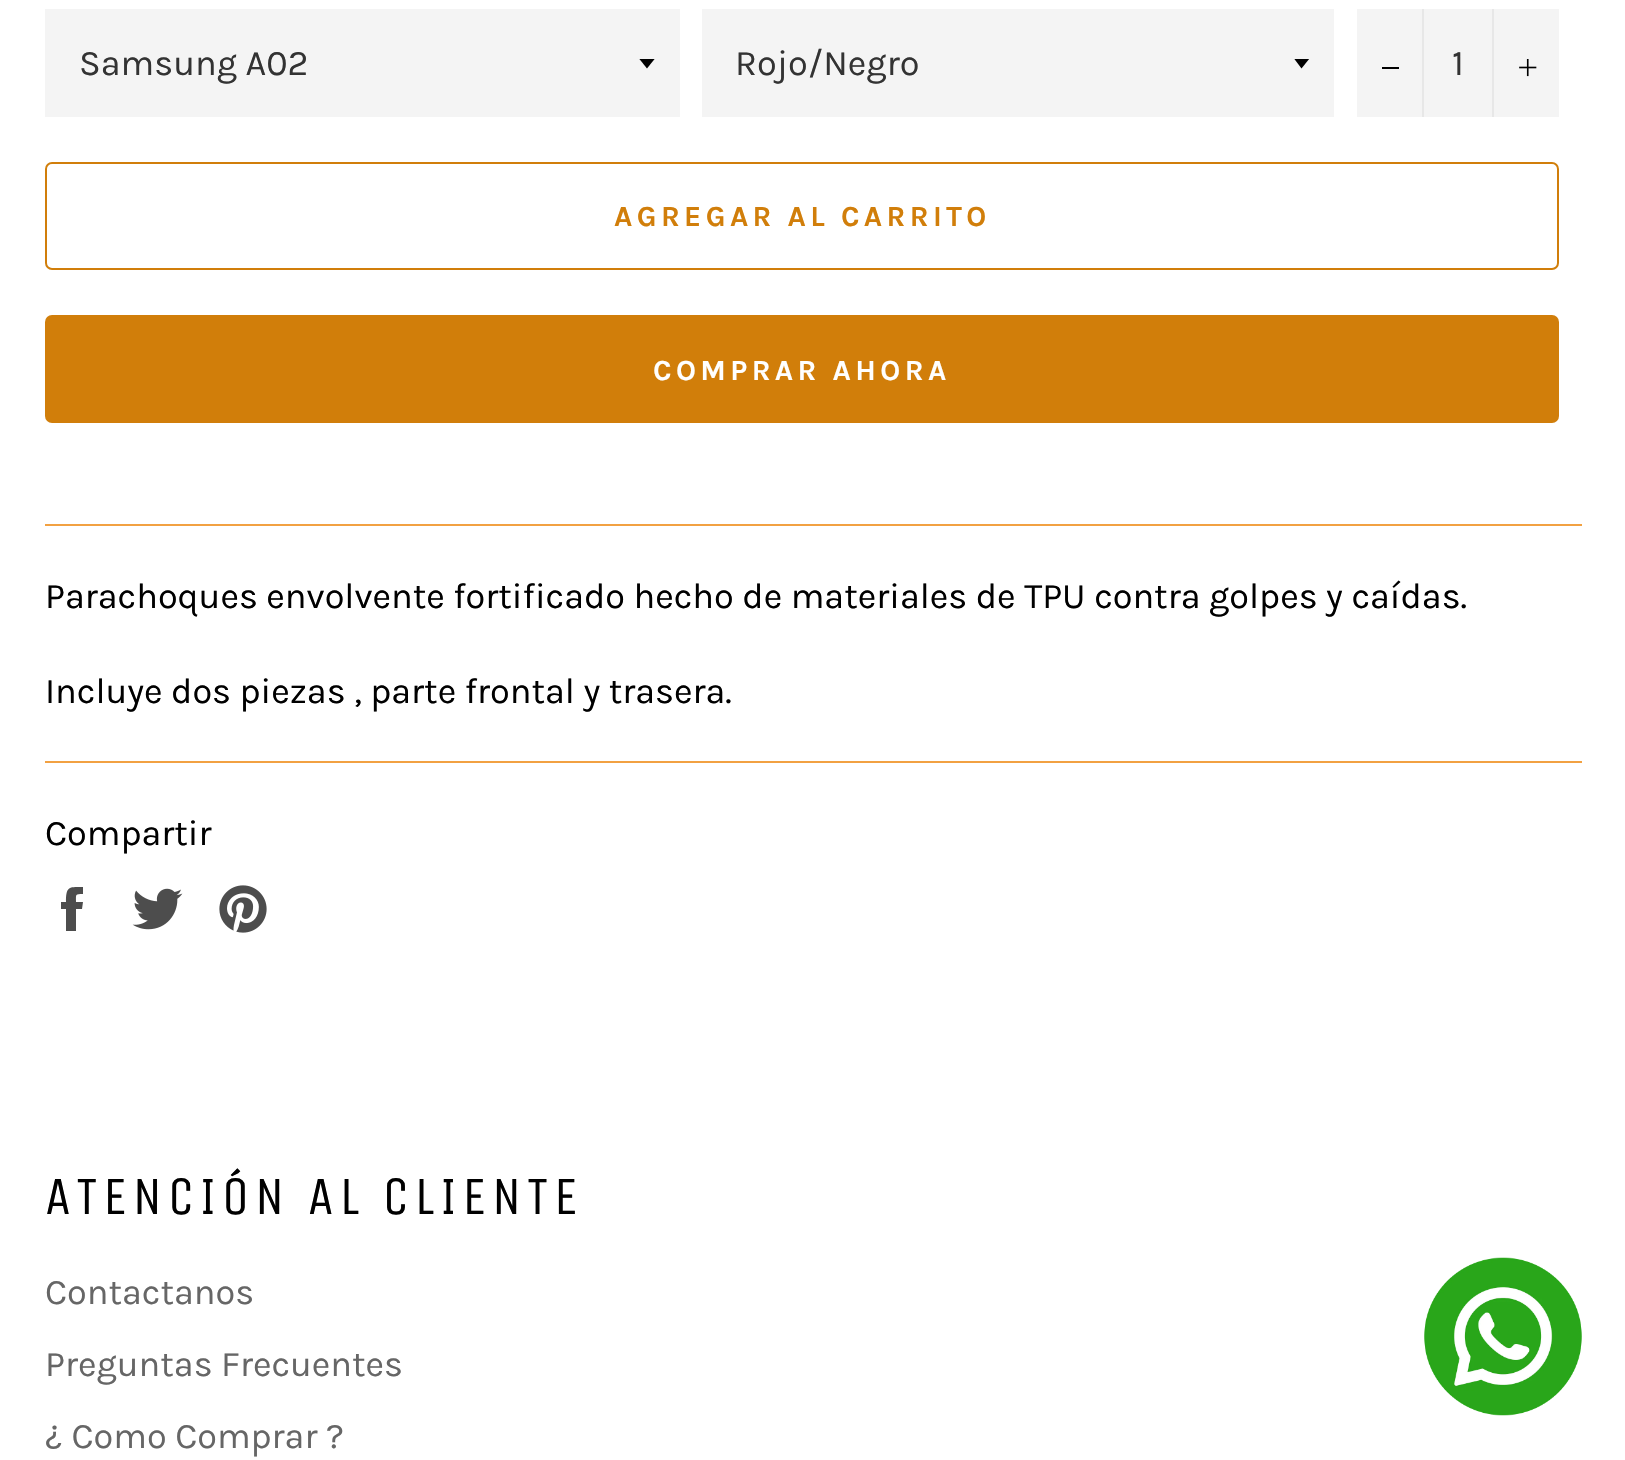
void draw(SkCanvas* canvas) {
    SkPaint paint;
    paint.setAntiAlias(true);
    auto spacedText = [&](const char* s, float x, float y, const SkFont& font, const SkPaint& ink, float letter, float word) {
        std::vector<SkGlyphID> glyphs(font.countText(s, strlen(s), SkTextEncoding::kUTF8));
        std::vector<float> xs(glyphs.size());
        font.textToGlyphs(s, strlen(s), SkTextEncoding::kUTF8, glyphs);
        font.getXPos(glyphs, xs, x);
        float extra = 0;
        for (size_t i = 0; i < glyphs.size(); i++) {
            xs[i] += extra;
            extra += letter + word * (glyphs[i] == font.unicharToGlyph(' '));
        }
        canvas->drawTextBlob(SkTextBlob::MakeFromPosHGlyphs(glyphs, xs, y, font), 0, 0, ink);
    };
    canvas->clear(0xFFFFFFFF);
    paint.setColor(0xFFF4F4F4);
    canvas->drawRect(SkRect::MakeXYWH(45, 9, 635, 108), paint);
    canvas->save();
    canvas->clipRect(SkRect::MakeXYWH(639, 59, 18, 11));
    paint.setColor(0xFF000000);
    canvas->drawPath(SkPathBuilder().moveTo(639, 58.5f).lineTo(647, 68.5f).lineTo(655, 58.5f).close().detach(), paint);
    canvas->restore();
    SkFont font1(fontMgr->matchFamilyStyle("Karla", SkFontStyle::Normal()), 36);
    font1.setSubpixel(true);
    paint.setColor(0xFF333333);
    canvas->drawString("Samsung A02", 79, 75, font1, paint);
    paint.setColor(0xFFF4F4F4);
    canvas->drawRect(SkRect::MakeXYWH(702, 9, 632, 108), paint);
    canvas->save();
    canvas->clipRect(SkRect::MakeXYWH(1294, 59, 18, 11));
    paint.setColor(0xFF000000);
    canvas->drawPath(SkPathBuilder().moveTo(1294, 58.5f).lineTo(1301.5f, 68.5f).lineTo(1309.5f, 58.5f).close().detach(), paint);
    canvas->restore();
    paint.setColor(0xFF333333);
    canvas->drawString("Rojo/Negro", 735, 75, font1, paint);
    paint.setColor(0xFFF4F4F4);
    canvas->drawRect(SkRect::MakeXYWH(1357, 9, 202, 108), paint);
    paint.setColor(0xFFE7E7E7);
    canvas->drawRect(SkRect::MakeXYWH(1422, 9, 2, 108), paint);
    paint.setColor(0xFF000000);
    canvas->drawRect(SkRect::MakeXYWH(1382, 67, 17, 2), paint);
    paint.setColor(0xFF333333);
    canvas->drawString("1", 1452, 75, font1, paint);
    paint.setColor(0xFFE7E7E7);
    canvas->drawRect(SkRect::MakeXYWH(1492, 9, 2, 108), paint);
    canvas->drawImageRect(SkImages::DeferredFromEncodedData(SkData::MakeFromFileName("img1.png")), SkRect::MakeXYWH(1519, 59, 18, 18), SkSamplingOptions());
    paint.setStyle(SkPaint::kStroke_Style);
    paint.setStrokeWidth(2);
    paint.setColor(0xFFD17E0A);
    canvas->drawRoundRect(SkRect::MakeXYWH(46, 163, 1512, 106), 6, 6, paint);
    SkFont font2(fontMgr->matchFamilyStyle("Karla", SkFontStyle::Bold()), 29.25f);
    font2.setSubpixel(true);
    paint.setStyle(SkPaint::kFill_Style);
    spacedText("AGREGAR AL CARRITO", 614, 226, font2, paint, 4.4f, 0);
    canvas->drawRoundRect(SkRect::MakeXYWH(45, 315, 1514, 108), 7, 7, paint);
    paint.setColor(0xFFFFFFFF);
    spacedText("COMPRAR AHORA", 653, 380, font2, paint, 4.4f, 0);
    paint.setColor(0xFFF2A142);
    canvas->drawRect(SkRect::MakeXYWH(45, 524, 1537, 2), paint);
    paint.setColor(0xFF000000);
    canvas->drawString("Parachoques envolvente fortificado hecho de materiales de TPU contra golpes y caídas.", 45, 608, font1, paint);
    canvas->drawString("Incluye dos piezas , parte frontal y trasera.", 45, 703, font1, paint);
    paint.setColor(0xFFF2A142);
    canvas->drawRect(SkRect::MakeXYWH(45, 761, 1537, 2), paint);
    paint.setColor(0xFF000000);
    canvas->drawString("Compartir", 45, 845, font1, paint);
    paint.setColor(0xFF4D4D4D);
    canvas->drawPath(SkPathBuilder().moveTo(76, 902).cubicTo(76, 894, 75, 894, 83, 894).lineTo(83, 887).cubicTo(69, 887, 66, 886, 66, 902).lineTo(61, 902).lineTo(61, 909).lineTo(66, 909).lineTo(66, 931).lineTo(76, 931).lineTo(76, 909).lineTo(82, 909).lineTo(83, 902).close().detach(), paint);
    canvas->drawImageRect(SkImages::DeferredFromEncodedData(SkData::MakeFromFileName("img2.png")), SkRect::MakeXYWH(132, 888, 51, 42), SkSamplingOptions());
    canvas->drawImageRect(SkImages::DeferredFromEncodedData(SkData::MakeFromFileName("img3.png")), SkRect::MakeXYWH(219, 885, 48, 48), SkSamplingOptions());
    SkFont font3(fontMgr->matchFamilyStyle("Unica One", SkFontStyle::Normal()), 54);
    font3.setSubpixel(true);
    paint.setColor(0xFF000000);
    spacedText("ATENCIÓN AL CLIENTE", 45, 1214, font3, paint, 5.4f, 0);
    paint.setColor(0xFF666666);
    canvas->drawString("Contactanos", 45, 1304, font1, paint);
    canvas->drawString("Preguntas Frecuentes", 45, 1376, font1, paint);
    canvas->drawString("¿ Como Comprar ?", 45, 1448, font1, paint);
    canvas->drawImageRect(SkImages::DeferredFromEncodedData(SkData::MakeFromFileName("img4.png")), SkRect::MakeXYWH(1424, 1257, 158, 159), SkSamplingOptions());
}
